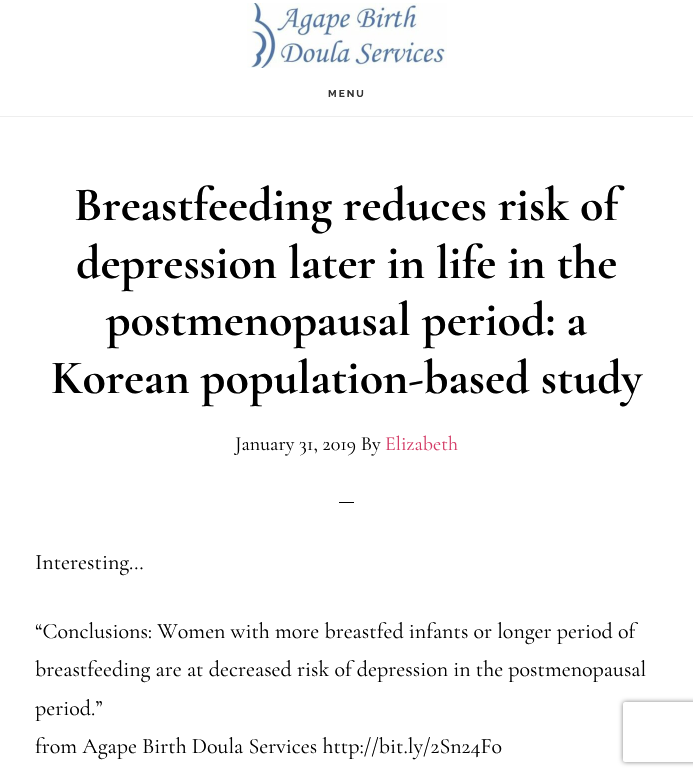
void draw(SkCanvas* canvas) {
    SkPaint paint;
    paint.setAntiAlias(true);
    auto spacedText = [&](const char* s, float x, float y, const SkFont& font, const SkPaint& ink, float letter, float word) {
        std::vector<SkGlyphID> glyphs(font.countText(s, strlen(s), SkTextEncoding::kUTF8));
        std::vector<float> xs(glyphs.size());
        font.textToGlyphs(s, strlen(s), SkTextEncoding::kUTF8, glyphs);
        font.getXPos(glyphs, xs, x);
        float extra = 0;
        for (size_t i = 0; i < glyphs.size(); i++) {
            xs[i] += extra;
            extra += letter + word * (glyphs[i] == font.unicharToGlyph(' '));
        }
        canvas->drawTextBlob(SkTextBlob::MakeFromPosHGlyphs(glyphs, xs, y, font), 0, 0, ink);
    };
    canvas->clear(0xFFFFFFFF);
    paint.setColor(0xFFEEEEEE);
    canvas->drawRect(SkRect::MakeXYWH(0, 116, 693, 1), paint);
    canvas->drawImageRect(SkImages::DeferredFromEncodedData(SkData::MakeFromFileName("img1.png")), SkRect::MakeXYWH(247, 3, 200, 65), SkSamplingOptions());
    SkFont font1(fontMgr->matchFamilyStyle("Raleway", SkFontStyle(100, SkFontStyle::kNormal_Width, SkFontStyle::kUpright_Slant)), 10);
    font1.setSubpixel(true);
    paint.setColor(0xFF333333);
    spacedText("MENU", 328, 97, font1, paint, 2, 0);
    SkFont font2(fontMgr->matchFamilyStyle("Cormorant Garamond", SkFontStyle::Bold()), 48);
    font2.setSubpixel(true);
    paint.setColor(0xFF000000);
    canvas->drawString("Breastfeeding reduces risk of", 74, 220, font2, paint);
    canvas->drawString("depression later in life in the", 76, 278, font2, paint);
    canvas->drawString("postmenopausal period: a", 106, 335, font2, paint);
    canvas->drawString("Korean population-based study", 51, 393, font2, paint);
    SkFont font3(fontMgr->matchFamilyStyle("Cormorant Garamond", SkFontStyle::Normal()), 20);
    font3.setSubpixel(true);
    canvas->drawString("January 31, 2019 By", 235, 450, font3, paint);
    paint.setColor(0xFFD43C67);
    canvas->drawString("Elizabeth", 385, 450, font3, paint);
    paint.setColor(0xFF000000);
    canvas->drawRect(SkRect::MakeXYWH(339, 502, 15, 1), paint);
    SkFont font4(fontMgr->matchFamilyStyle("Cormorant Garamond", SkFontStyle::Normal()), 22);
    font4.setSubpixel(true);
    canvas->drawString("Interesting…", 35, 569, font4, paint);
    canvas->drawString("“Conclusions: Women with more breastfed infants or longer period of", 35, 638, font4, paint);
    canvas->drawString("breastfeeding are at decreased risk of depression in the postmenopausal", 35, 676, font4, paint);
    canvas->drawString("period.”", 35, 715, font4, paint);
    canvas->drawString("from Agape Birth Doula Services http://bit.ly/2Sn24Fo", 35, 753, font4, paint);
    canvas->save();
    canvas->clipPath(SkPathBuilder(SkPathFillType::kEvenOdd).moveTo(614, 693).lineTo(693, 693).lineTo(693, 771).lineTo(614, 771).close().moveTo(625, 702).lineTo(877, 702).cubicTo(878, 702, 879, 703, 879, 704).lineTo(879, 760).cubicTo(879, 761, 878, 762, 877, 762).lineTo(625, 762).cubicTo(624, 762, 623, 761, 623, 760).lineTo(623, 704).cubicTo(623, 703, 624, 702, 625, 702).close().detach(), true);
    paint.setColor(0xFF808080);
    paint.setMaskFilter(SkMaskFilter::MakeBlur(kNormal_SkBlurStyle, 2.5f));
    canvas->drawRoundRect(SkRect::MakeXYWH(623, 702, 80, 60), 2, 2, paint);
    paint.setMaskFilter(nullptr);
    canvas->restore();
}
